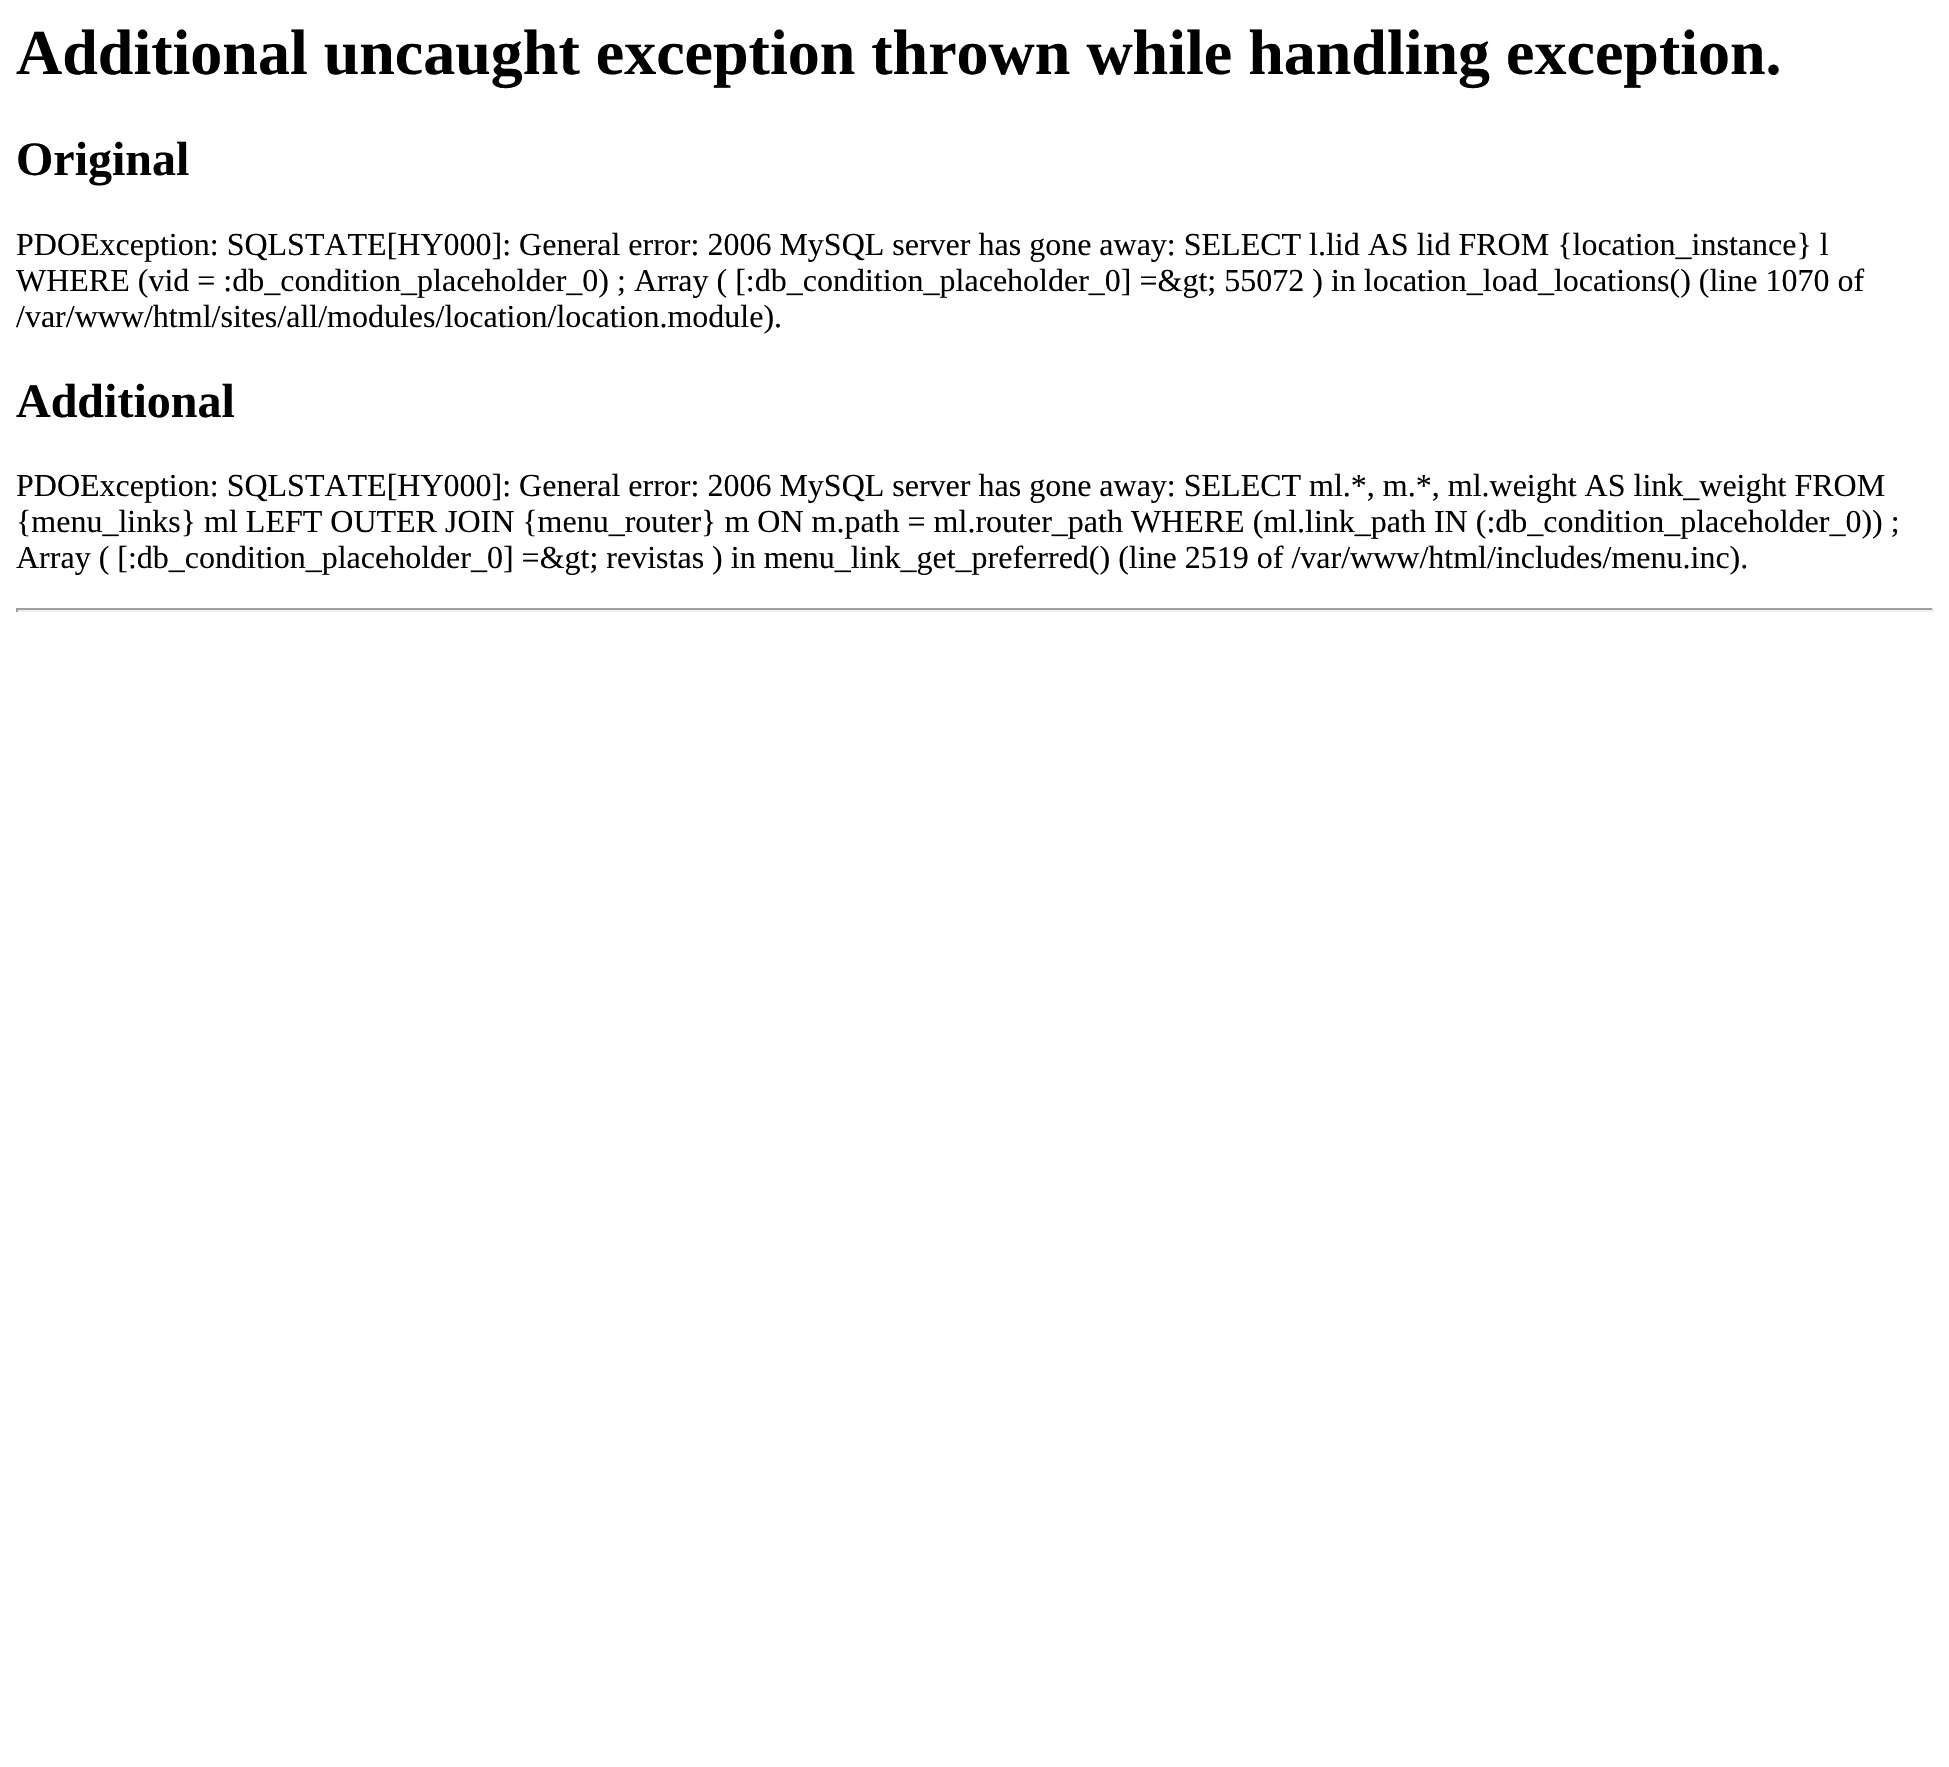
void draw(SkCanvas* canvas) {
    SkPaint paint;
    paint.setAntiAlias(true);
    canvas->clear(0xFFFFFFFF);
    SkFont font1(fontMgr->matchFamilyStyle("Liberation Serif", SkFontStyle::Bold()), 64);
    font1.setSubpixel(true);
    paint.setColor(0xFF000000);
    canvas->drawString("Additional uncaught exception thrown while handling exception.", 16, 74, font1, paint);
    SkFont font2(fontMgr->matchFamilyStyle("Liberation Serif", SkFontStyle::Bold()), 48);
    font2.setSubpixel(true);
    canvas->drawString("Original", 16, 175, font2, paint);
    SkFont font3(fontMgr->matchFamilyStyle("Liberation Serif", SkFontStyle::Normal()), 32);
    font3.setSubpixel(true);
    canvas->drawString("PDOException: SQLSTATE[HY000]: General error: 2006 MySQL server has gone away: SELECT l.lid AS lid FROM {location_instance} l", 16, 255, font3, paint);
    canvas->drawString("WHERE (vid = :db_condition_placeholder_0) ; Array ( [:db_condition_placeholder_0] =&gt; 55072 ) in location_load_locations() (line 1070 of", 16, 291, font3, paint);
    canvas->drawString("/var/www/html/sites/all/modules/location/location.module).", 16, 327, font3, paint);
    canvas->drawString("Additional", 16, 417, font2, paint);
    canvas->drawString("PDOException: SQLSTATE[HY000]: General error: 2006 MySQL server has gone away: SELECT ml.*, m.*, ml.weight AS link_weight FROM", 16, 496, font3, paint);
    canvas->drawString("{menu_links} ml LEFT OUTER JOIN {menu_router} m ON m.path = ml.router_path WHERE (ml.link_path IN (:db_condition_placeholder_0)) ;", 16, 532, font3, paint);
    canvas->drawString("Array ( [:db_condition_placeholder_0] =&gt; revistas ) in menu_link_get_preferred() (line 2519 of /var/www/html/includes/menu.inc).", 16, 568, font3, paint);
    paint.setColor(0xFF9F9F9F);
    canvas->drawRect(SkRect::MakeXYWH(16, 608, 1918, 2), paint);
    paint.setColor(0xFFEEEEEE);
    canvas->drawRect(SkRect::MakeXYWH(1932, 608, 2, 4), paint);
    canvas->drawRect(SkRect::MakeXYWH(16, 610, 1918, 2), paint);
    paint.setColor(0xFF9F9F9F);
    canvas->drawRect(SkRect::MakeXYWH(16, 608, 2, 4), paint);
}
